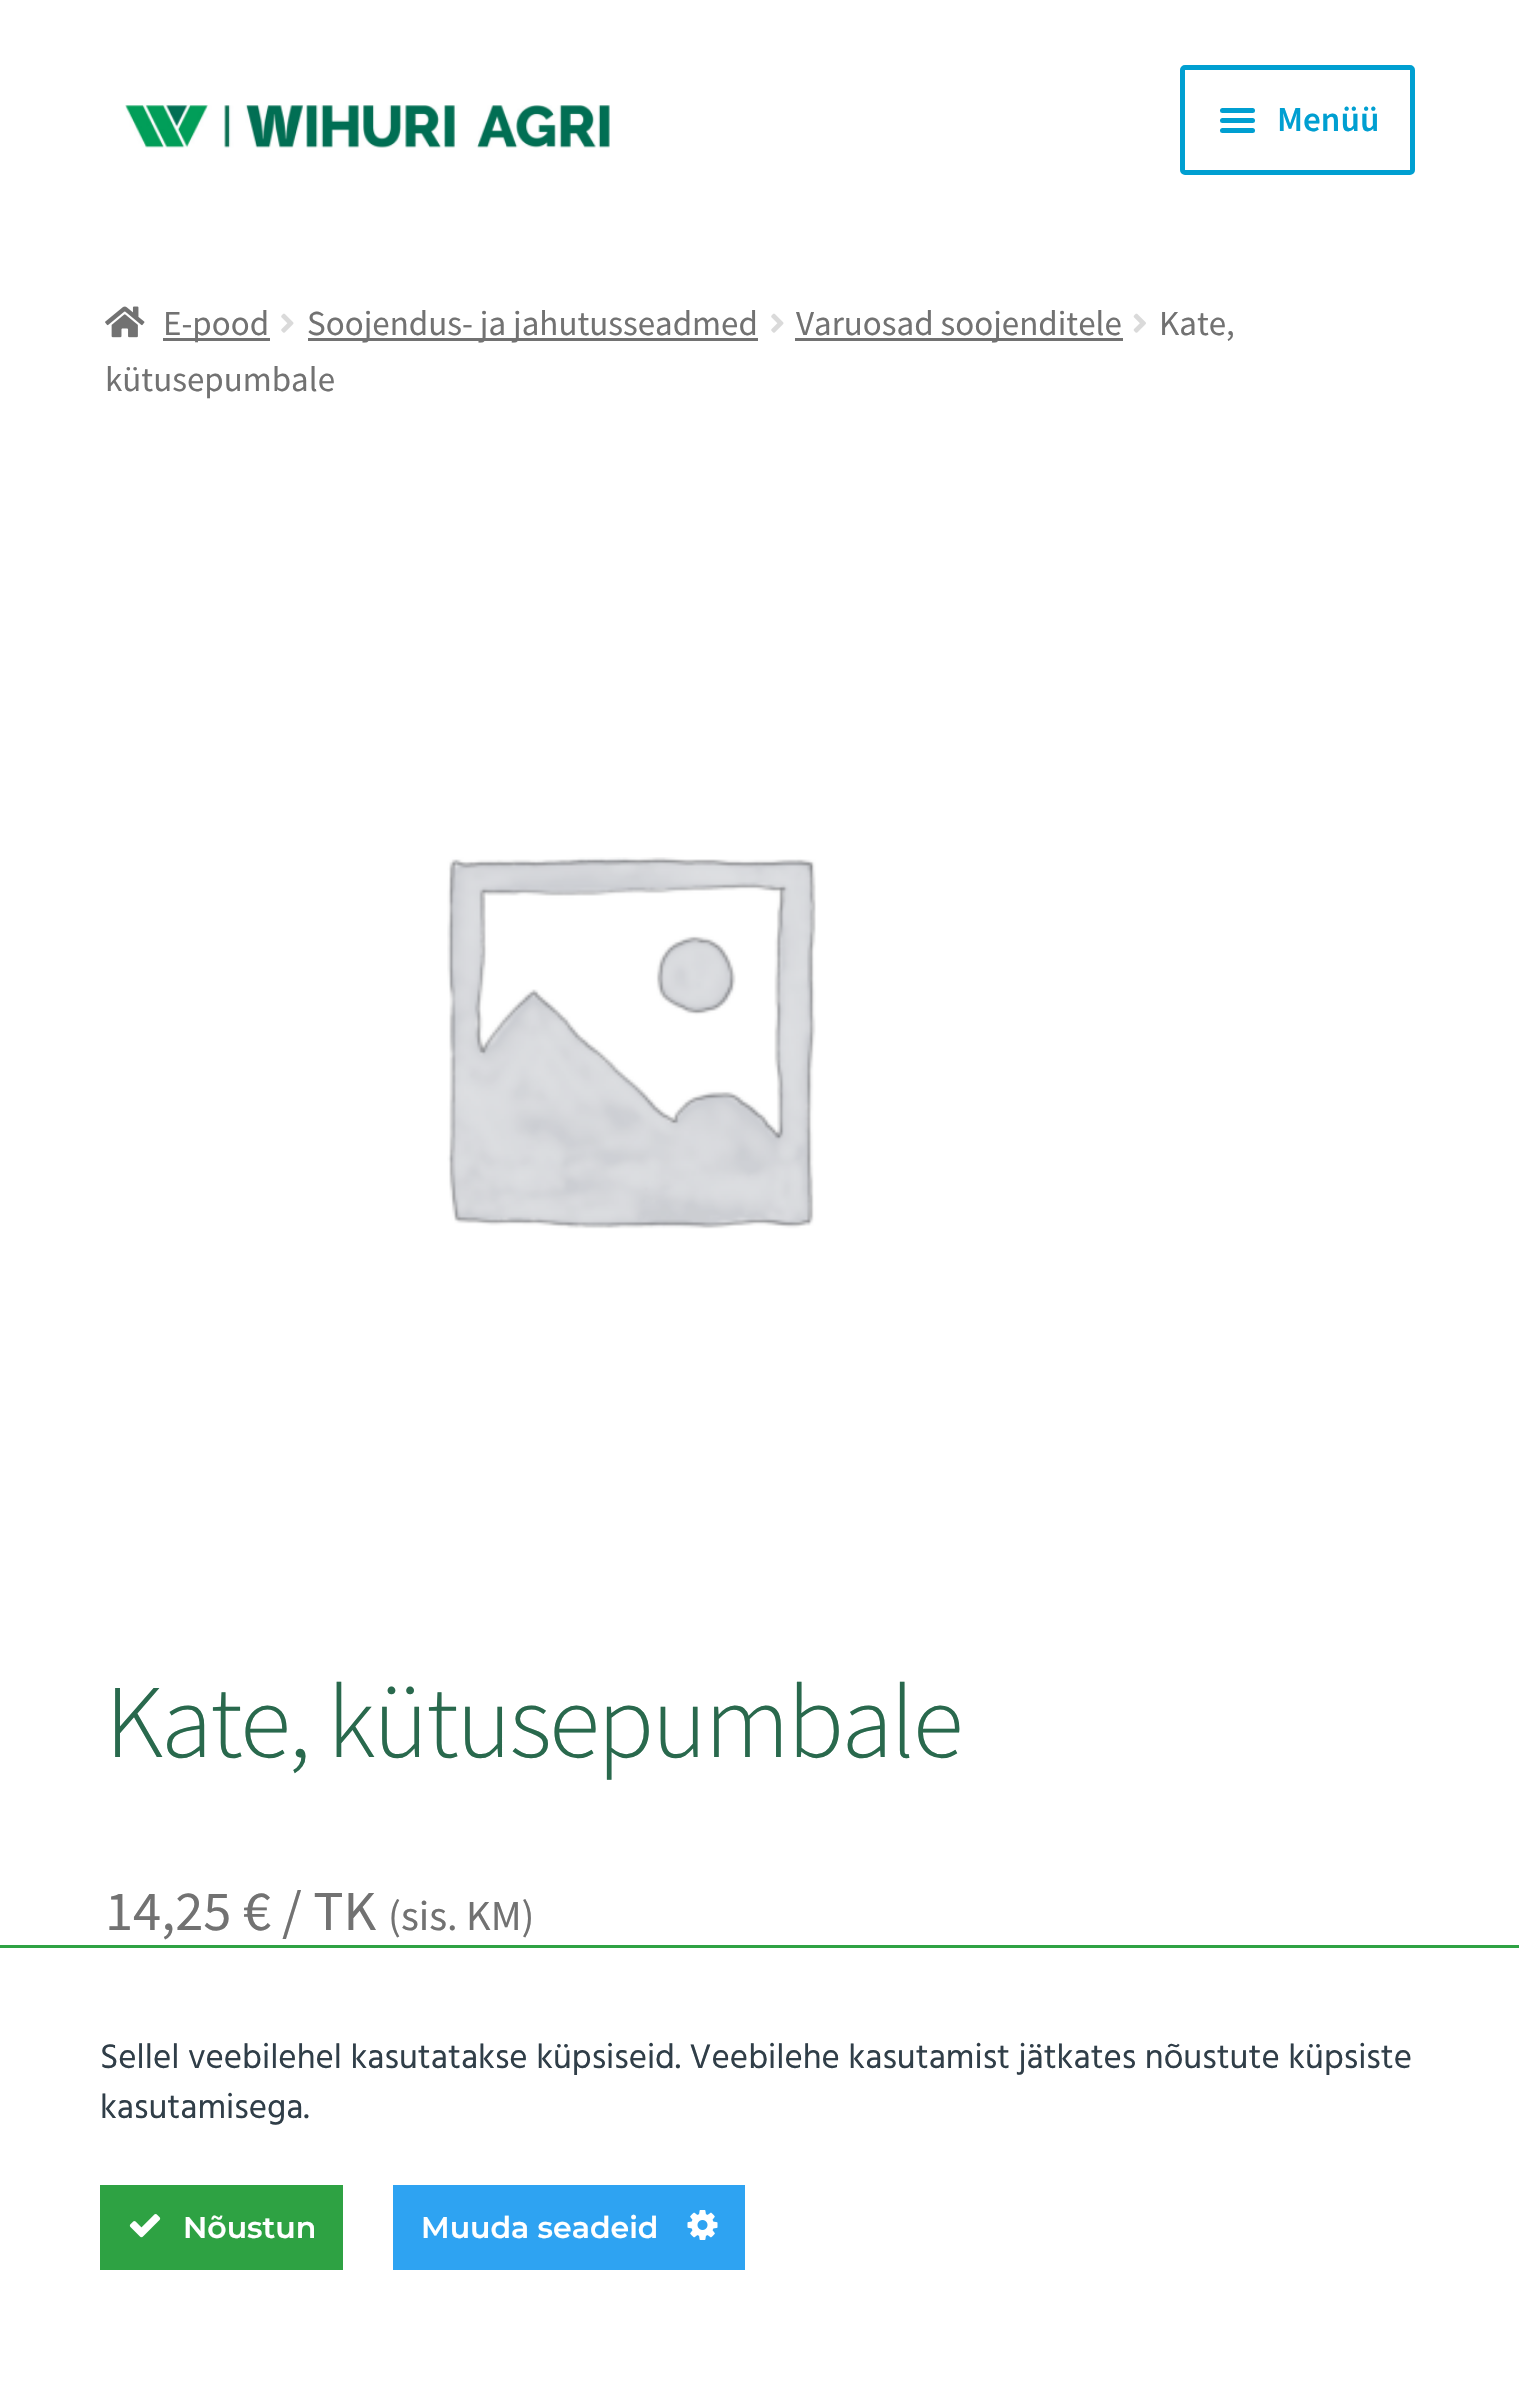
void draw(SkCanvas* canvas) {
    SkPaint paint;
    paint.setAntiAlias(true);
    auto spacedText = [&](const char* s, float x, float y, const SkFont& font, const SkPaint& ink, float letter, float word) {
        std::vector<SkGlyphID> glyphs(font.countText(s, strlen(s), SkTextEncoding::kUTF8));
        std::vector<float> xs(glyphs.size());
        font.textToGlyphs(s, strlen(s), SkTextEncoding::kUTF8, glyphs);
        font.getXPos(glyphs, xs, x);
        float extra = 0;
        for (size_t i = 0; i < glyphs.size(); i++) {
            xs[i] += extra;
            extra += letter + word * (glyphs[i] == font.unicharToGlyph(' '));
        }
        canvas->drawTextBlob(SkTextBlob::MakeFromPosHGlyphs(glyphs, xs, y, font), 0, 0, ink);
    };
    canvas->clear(0xFFFFFFFF);
    canvas->drawImageRect(SkImages::DeferredFromEncodedData(SkData::MakeFromFileName("img1.png")), SkRect::MakeXYWH(125, 105, 485, 43), SkSamplingOptions());
    paint.setStyle(SkPaint::kStroke_Style);
    paint.setStrokeWidth(5);
    paint.setColor(0xFF009FD1);
    canvas->drawRoundRect(SkRect::MakeXYWH(1182.5f, 67.5f, 230, 105), 2.5f, 2.5f, paint);
    paint.setStyle(SkPaint::kFill_Style);
    canvas->drawRoundRect(SkRect::MakeXYWH(1220, 108, 35, 5), 2.5f, 2.5f, paint);
    canvas->drawRoundRect(SkRect::MakeXYWH(1220, 118, 35, 5), 2.5f, 2.5f, paint);
    SkFont font1(fontMgr->matchFamilyStyle("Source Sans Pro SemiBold", SkFontStyle(600, SkFontStyle::kNormal_Width, SkFontStyle::kUpright_Slant)), 35);
    font1.setSubpixel(true);
    canvas->drawString("Menüü", 1277, 131, font1, paint);
    canvas->drawRoundRect(SkRect::MakeXYWH(1220, 128, 35, 5), 2.5f, 2.5f, paint);
    canvas->drawImageRect(SkImages::DeferredFromEncodedData(SkData::MakeFromFileName("img2.png")), SkRect::MakeXYWH(105, 306, 40, 32), SkSamplingOptions());
    paint.setColor(0xFF727272);
    canvas->drawRect(SkRect::MakeXYWH(163, 338, 107, 3), paint);
    SkFont font2(fontMgr->matchFamilyStyle("Source Sans Pro", SkFontStyle::Normal()), 35);
    font2.setSubpixel(true);
    canvas->drawString("E-pood", 163, 335, font2, paint);
    canvas->drawImageRect(SkImages::DeferredFromEncodedData(SkData::MakeFromFileName("img3.png")), SkRect::MakeXYWH(281, 313, 13, 20), SkSamplingOptions());
    canvas->drawRect(SkRect::MakeXYWH(308, 338, 450, 3), paint);
    canvas->drawString("Soojendus- ja jahutusseadmed", 307, 335, font2, paint);
    canvas->drawImageRect(SkImages::DeferredFromEncodedData(SkData::MakeFromFileName("img3.png")), SkRect::MakeXYWH(771, 313, 13, 20), SkSamplingOptions());
    canvas->drawRect(SkRect::MakeXYWH(795, 338, 328, 3), paint);
    canvas->drawString("Varuosad soojenditele", 796, 335, font2, paint);
    canvas->drawImageRect(SkImages::DeferredFromEncodedData(SkData::MakeFromFileName("img4.png")), SkRect::MakeXYWH(1133, 313, 13, 20), SkSamplingOptions());
    canvas->drawString("Kate,", 1159, 335, font2, paint);
    canvas->drawString("kütusepumbale", 105, 391, font2, paint);
    canvas->drawImageRect(SkImages::DeferredFromEncodedData(SkData::MakeFromFileName("img5.png")), SkRect::MakeXYWH(447, 857, 369, 372), SkSamplingOptions());
    SkFont font3(fontMgr->matchFamilyStyle("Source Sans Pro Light", SkFontStyle(300, SkFontStyle::kNormal_Width, SkFontStyle::kUpright_Slant)), 104.75f);
    font3.setSubpixel(true);
    paint.setColor(0xFF29694D);
    spacedText("Kate, kütusepumbale", 105, 1757, font3, paint, -2.5f, 0);
    SkFont font4(fontMgr->matchFamilyStyle("Source Sans Pro", SkFontStyle::Normal()), 56.5f);
    font4.setSubpixel(true);
    paint.setColor(0xFF727272);
    canvas->drawString("14,25 € / TK", 105, 1930, font4, paint);
    SkFont font5(fontMgr->matchFamilyStyle("Source Sans Pro", SkFontStyle::Normal()), 42.5f);
    font5.setSubpixel(true);
    canvas->drawString("(sis. KM)", 388, 1930, font5, paint);
    paint.setColor(0xFF2EA243);
    canvas->drawRect(SkRect::MakeXYWH(0, 1945, 1519, 3), paint);
    SkFont font6(fontMgr->matchFamilyStyle("Hind", SkFontStyle::Normal()), 35);
    font6.setSubpixel(true);
    paint.setColor(0xFF303E48);
    canvas->drawString("Sellel veebilehel kasutatakse küpsiseid. Veebilehe kasutamist jätkates nõustute küpsiste", 100, 2068, font6, paint);
    canvas->drawString("kasutamisega.", 100, 2118, font6, paint);
    paint.setColor(0xFF2EA243);
    canvas->drawRect(SkRect::MakeXYWH(100, 2185, 243, 85), paint);
    canvas->drawImageRect(SkImages::DeferredFromEncodedData(SkData::MakeFromFileName("img6.png")), SkRect::MakeXYWH(129, 2214, 32, 24), SkSamplingOptions());
    SkFont font7(fontMgr->matchFamilyStyle("Montserrat", SkFontStyle(600, SkFontStyle::kNormal_Width, SkFontStyle::kUpright_Slant)), 30);
    font7.setSubpixel(true);
    paint.setColor(0xFFFFFFFF);
    canvas->drawString("Nõustun", 183, 2238, font7, paint);
    paint.setColor(0xFF2EA3F2);
    canvas->drawRect(SkRect::MakeXYWH(393, 2185, 352, 85), paint);
    paint.setColor(0xFFFFFFFF);
    canvas->drawString("Muuda seadeid", 421, 2238, font7, paint);
    canvas->drawImageRect(SkImages::DeferredFromEncodedData(SkData::MakeFromFileName("img7.png")), SkRect::MakeXYWH(687, 2210, 31, 30), SkSamplingOptions());
}
